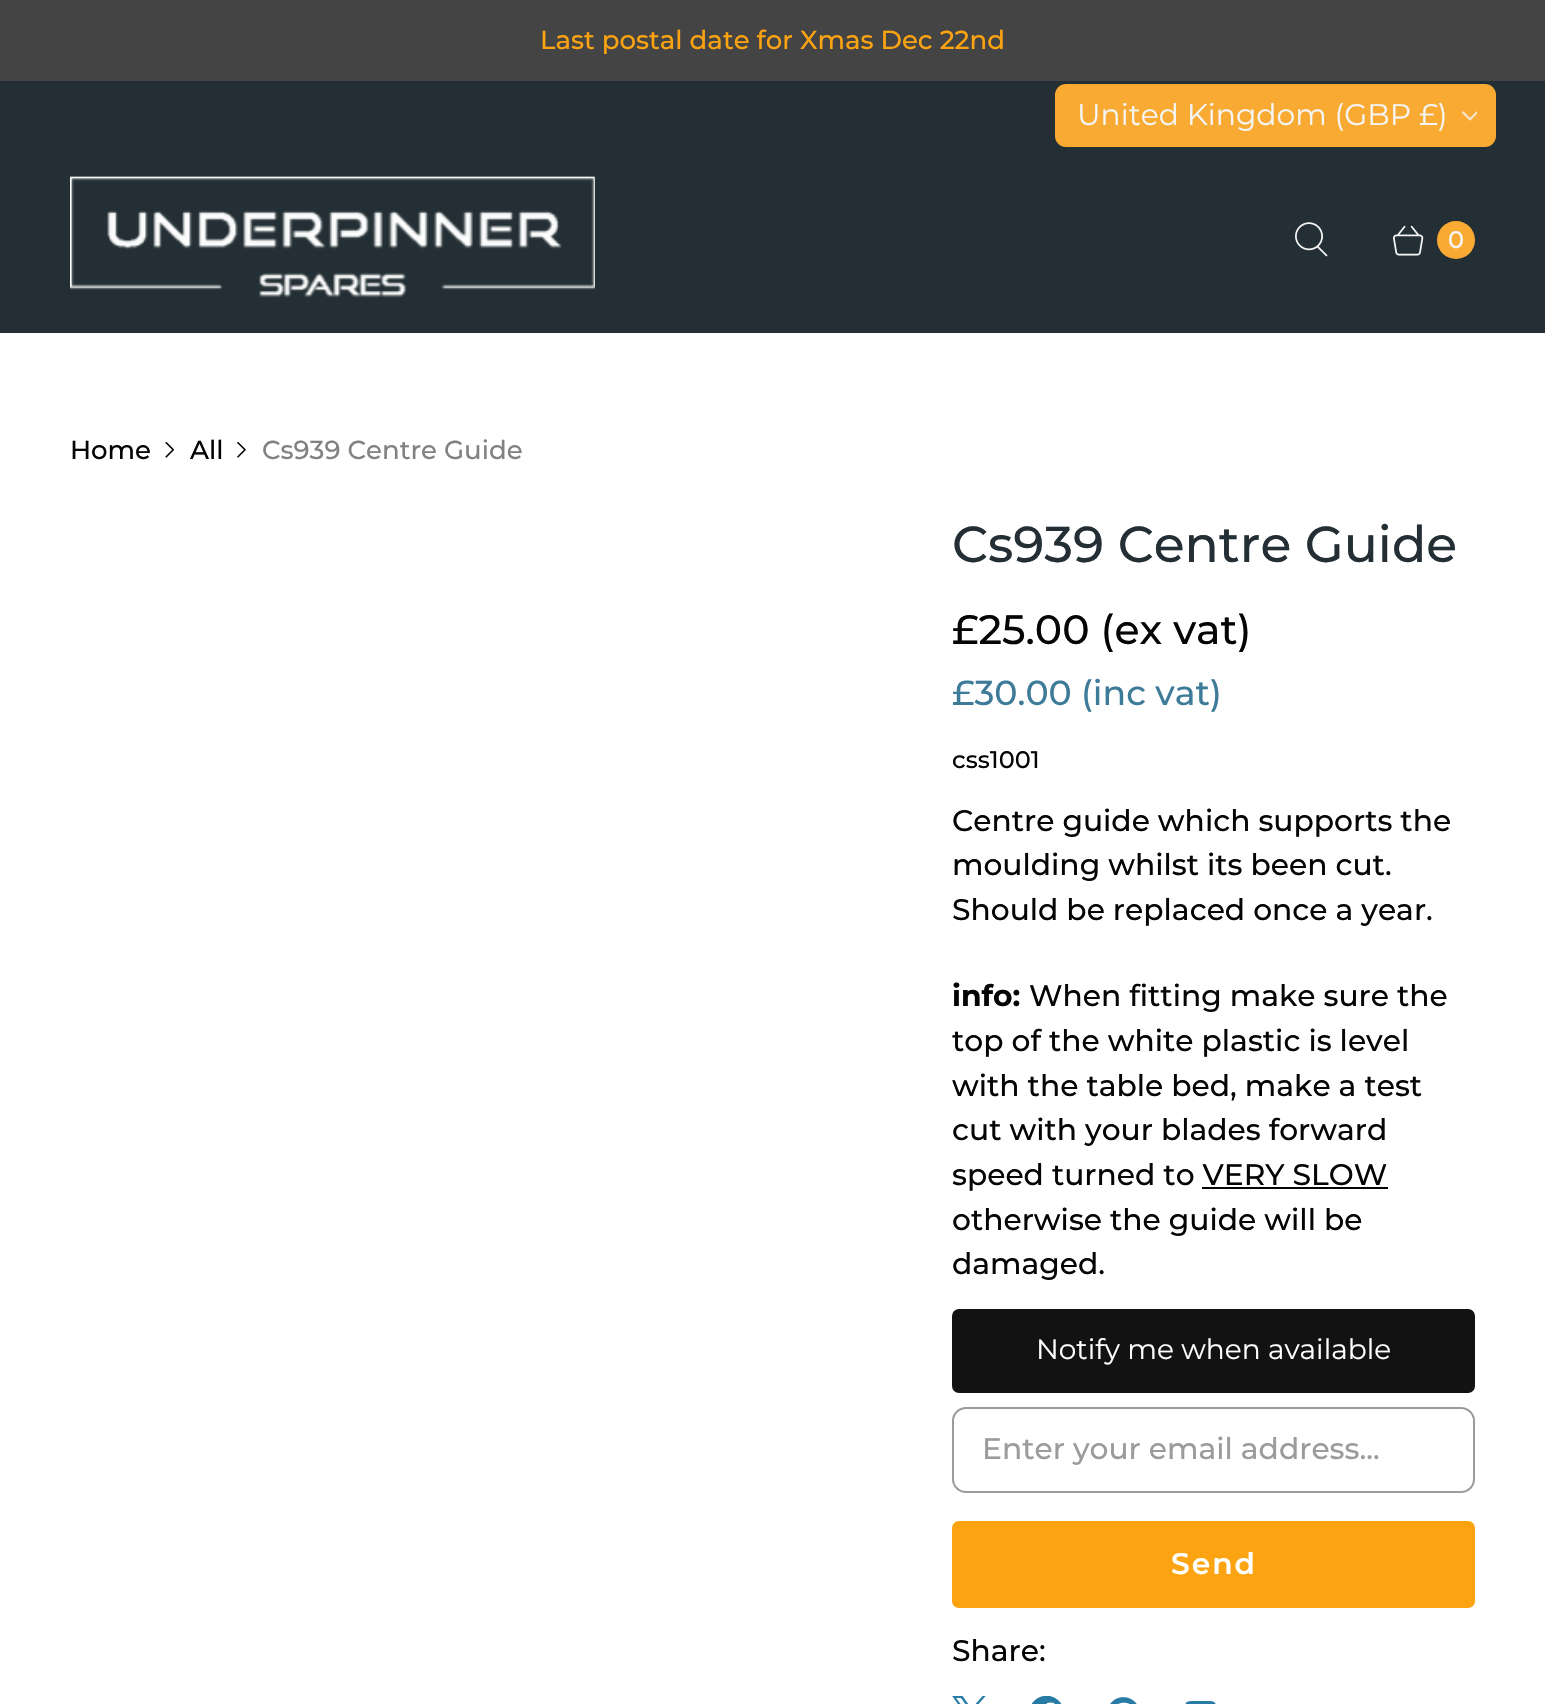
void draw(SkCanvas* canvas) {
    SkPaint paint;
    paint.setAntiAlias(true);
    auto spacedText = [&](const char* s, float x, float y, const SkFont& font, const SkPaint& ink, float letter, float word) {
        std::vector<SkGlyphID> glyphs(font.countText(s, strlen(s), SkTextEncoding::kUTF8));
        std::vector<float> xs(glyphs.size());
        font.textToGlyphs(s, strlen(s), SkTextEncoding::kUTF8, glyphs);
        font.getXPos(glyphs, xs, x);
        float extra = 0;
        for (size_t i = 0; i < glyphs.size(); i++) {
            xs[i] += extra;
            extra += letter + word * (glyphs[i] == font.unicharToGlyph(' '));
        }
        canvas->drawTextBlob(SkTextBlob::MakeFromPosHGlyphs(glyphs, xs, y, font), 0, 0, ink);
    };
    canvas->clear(0xFFFFFFFF);
    paint.setColor(0xFF444444);
    canvas->drawRect(SkRect::MakeXYWH(0, 0, 1545, 81), paint);
    SkFont font1(fontMgr->matchFamilyStyle("Montserrat", SkFontStyle(500, SkFontStyle::kNormal_Width, SkFontStyle::kUpright_Slant)), 26);
    font1.setSubpixel(true);
    paint.setColor(0xFFFCA311);
    canvas->drawString("Last postal date for Xmas Dec 22nd", 540, 49, font1, paint);
    paint.setColor(0xFF232F34);
    canvas->drawRect(SkRect::MakeXYWH(0, 81, 1545, 252), paint);
    paint.setColor(0xFFF9AA33);
    canvas->drawRoundRect(SkRect::MakeXYWH(1055, 84, 441, 63), 11, 11, paint);
    SkFont font2(fontMgr->matchFamilyStyle("Montserrat", SkFontStyle::Normal()), 29.75f);
    font2.setSubpixel(true);
    paint.setColor(0xFFF5F5F5);
    canvas->drawString("United Kingdom (GBP £)", 1077, 125, font2, paint);
    canvas->drawImageRect(SkImages::DeferredFromEncodedData(SkData::MakeFromFileName("img1.png")), SkRect::MakeXYWH(1462, 111, 15, 10), SkSamplingOptions());
    canvas->drawImageRect(SkImages::DeferredFromEncodedData(SkData::MakeFromFileName("img2.png")), SkRect::MakeXYWH(70, 176, 525, 122), SkSamplingOptions());
    canvas->drawImageRect(SkImages::DeferredFromEncodedData(SkData::MakeFromFileName("img3.png")), SkRect::MakeXYWH(1295, 222, 33, 35), SkSamplingOptions());
    canvas->drawImageRect(SkImages::DeferredFromEncodedData(SkData::MakeFromFileName("img4.png")), SkRect::MakeXYWH(1393, 225, 31, 31), SkSamplingOptions());
    paint.setColor(0xFFF9AA33);
    canvas->drawCircle(1456, 240, 19, paint);
    SkFont font3(fontMgr->matchFamilyStyle("Montserrat", SkFontStyle(500, SkFontStyle::kNormal_Width, SkFontStyle::kUpright_Slant)), 24);
    font3.setSubpixel(true);
    paint.setColor(0xFFF5F5F5);
    canvas->drawString("0", 1448, 248, font3, paint);
    paint.setColor(0xFF050505);
    canvas->drawString("Home", 70, 459, font1, paint);
    canvas->drawImageRect(SkImages::DeferredFromEncodedData(SkData::MakeFromFileName("img5.png")), SkRect::MakeXYWH(165, 442, 9, 16), SkSamplingOptions());
    canvas->drawString("All", 190, 459, font1, paint);
    canvas->drawImageRect(SkImages::DeferredFromEncodedData(SkData::MakeFromFileName("img6.png")), SkRect::MakeXYWH(237, 442, 9, 16), SkSamplingOptions());
    paint.setColor(0xFF828282);
    canvas->drawString("Cs939 Centre Guide", 262, 459, font1, paint);
    SkFont font4(fontMgr->matchFamilyStyle("Montserrat", SkFontStyle(500, SkFontStyle::kNormal_Width, SkFontStyle::kUpright_Slant)), 50.4f);
    font4.setSubpixel(true);
    paint.setColor(0xFF232F34);
    canvas->drawString("Cs939 Centre Guide", 952, 562, font4, paint);
    SkFont font5(fontMgr->matchFamilyStyle("Montserrat", SkFontStyle(500, SkFontStyle::kNormal_Width, SkFontStyle::kUpright_Slant)), 41);
    font5.setSubpixel(true);
    paint.setColor(0xFF050505);
    canvas->drawString("£25.00 (ex vat)", 952, 644, font5, paint);
    SkFont font6(fontMgr->matchFamilyStyle("Montserrat", SkFontStyle(500, SkFontStyle::kNormal_Width, SkFontStyle::kUpright_Slant)), 34.75f);
    font6.setSubpixel(true);
    paint.setColor(0xFF3E7B99);
    canvas->drawString("£30.00 (inc vat)", 952, 705, font6, paint);
    paint.setColor(0xFF050505);
    canvas->drawString("css1001", 952, 768, font3, paint);
    SkFont font7(fontMgr->matchFamilyStyle("Montserrat", SkFontStyle(500, SkFontStyle::kNormal_Width, SkFontStyle::kUpright_Slant)), 29.75f);
    font7.setSubpixel(true);
    canvas->drawString("Centre guide which supports the", 952, 831, font7, paint);
    canvas->drawString("moulding whilst its been cut.", 952, 875, font7, paint);
    canvas->drawString("Should be replaced once a year.", 952, 920, font7, paint);
    SkFont font8(fontMgr->matchFamilyStyle("Montserrat", SkFontStyle::Bold()), 29.75f);
    font8.setSubpixel(true);
    canvas->drawString("info:", 952, 1006, font8, paint);
    canvas->drawString("When fitting make sure the", 1029, 1006, font7, paint);
    canvas->drawString("top of the white plastic is level", 952, 1051, font7, paint);
    canvas->drawString("with the table bed, make a test", 952, 1096, font7, paint);
    canvas->drawString("cut with your blades forward", 952, 1140, font7, paint);
    canvas->drawString("speed turned to VERY SLOW", 952, 1185, font7, paint);
    canvas->drawRect(SkRect::MakeXYWH(1202, 1187, 186, 2), paint);
    canvas->drawString("otherwise the guide will be", 952, 1230, font7, paint);
    canvas->drawString("damaged.", 952, 1274, font7, paint);
    paint.setColor(0xFF121212);
    canvas->drawRoundRect(SkRect::MakeXYWH(953, 1310, 521, 82), 6, 6, paint);
    paint.setStyle(SkPaint::kStroke_Style);
    paint.setStrokeWidth(2);
    canvas->drawRoundRect(SkRect::MakeXYWH(953, 1310, 521, 82), 6, 6, paint);
    SkFont font9(fontMgr->matchFamilyStyle("Montserrat", SkFontStyle::Normal()), 28);
    font9.setSubpixel(true);
    paint.setStyle(SkPaint::kFill_Style);
    paint.setColor(0xFFFFFFFF);
    canvas->drawString("Notify me when available", 1036, 1359, font9, paint);
    paint.setStyle(SkPaint::kStroke_Style);
    paint.setColor(0xFF9B9B9B);
    canvas->drawRoundRect(SkRect::MakeXYWH(953, 1408, 521, 84), 13, 13, paint);
    paint.setStyle(SkPaint::kFill_Style);
    canvas->drawString("Enter your email address...", 982, 1459, font7, paint);
    paint.setColor(0xFFFCA311);
    canvas->drawRoundRect(SkRect::MakeXYWH(953, 1522, 521, 85), 6, 6, paint);
    paint.setStyle(SkPaint::kStroke_Style);
    canvas->drawRoundRect(SkRect::MakeXYWH(953, 1522, 521, 85), 6, 6, paint);
    SkFont font10(fontMgr->matchFamilyStyle("Montserrat", SkFontStyle(600, SkFontStyle::kNormal_Width, SkFontStyle::kUpright_Slant)), 29.75f);
    font10.setSubpixel(true);
    paint.setStyle(SkPaint::kFill_Style);
    paint.setColor(0xFFFFFFFF);
    spacedText("Send", 1171, 1574, font10, paint, 2, 0);
    paint.setColor(0xFF050505);
    canvas->drawString("Share:", 952, 1661, font7, paint);
    canvas->drawImageRect(SkImages::DeferredFromEncodedData(SkData::MakeFromFileName("img7.png")), SkRect::MakeXYWH(952, 1696, 34, 8), SkSamplingOptions());
    canvas->drawImageRect(SkImages::DeferredFromEncodedData(SkData::MakeFromFileName("img8.png")), SkRect::MakeXYWH(1031, 1696, 31, 8), SkSamplingOptions());
    canvas->drawImageRect(SkImages::DeferredFromEncodedData(SkData::MakeFromFileName("img9.png")), SkRect::MakeXYWH(1110, 1697, 27, 7), SkSamplingOptions());
    canvas->drawImageRect(SkImages::DeferredFromEncodedData(SkData::MakeFromFileName("img10.png")), SkRect::MakeXYWH(1185, 1701, 31, 3), SkSamplingOptions());
}
